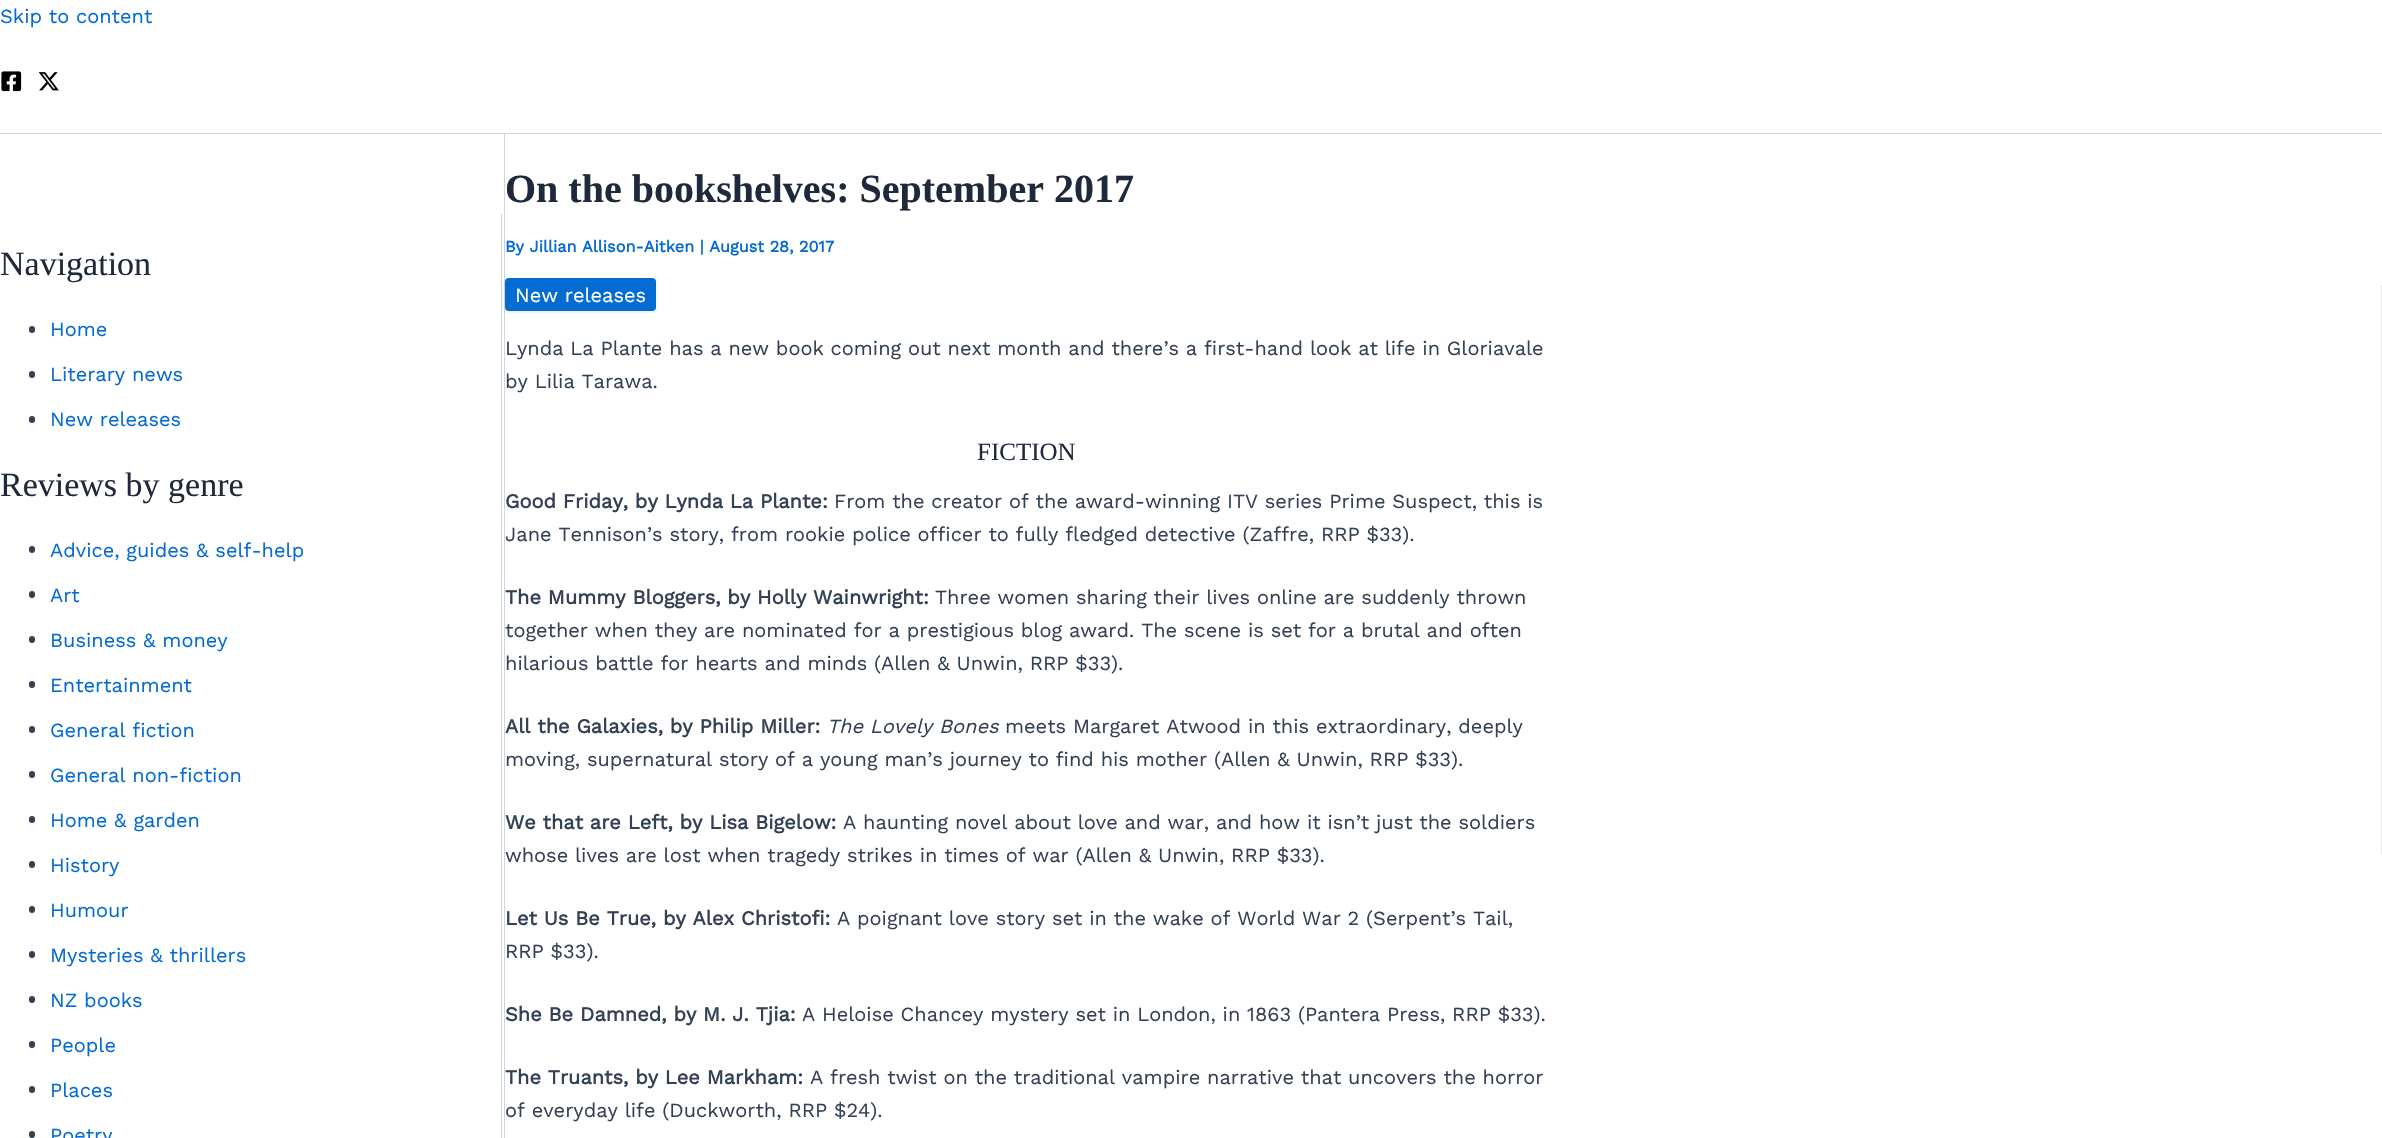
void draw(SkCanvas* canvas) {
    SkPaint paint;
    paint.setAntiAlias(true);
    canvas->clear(0xFFFFFFFF);
    SkFont font1(fontMgr->matchFamilyStyle("Work Sans", SkFontStyle::Normal()), 20);
    font1.setSubpixel(true);
    paint.setColor(0xFF046BD2);
    canvas->drawString("Skip to content", 0, 23, font1, paint);
    paint.setColor(0xFFD1D5DB);
    canvas->drawRect(SkRect::MakeXYWH(0, 133, 2382, 1), paint);
    canvas->drawImageRect(SkImages::DeferredFromEncodedData(SkData::MakeFromFileName("img1.png")), SkRect::MakeXYWH(1, 71, 21, 21), SkSamplingOptions());
    canvas->drawImageRect(SkImages::DeferredFromEncodedData(SkData::MakeFromFileName("img2.png")), SkRect::MakeXYWH(38, 72, 21, 19), SkSamplingOptions());
    canvas->drawRect(SkRect::MakeXYWH(501, 214, 1, 924), paint);
    SkFont font2(fontMgr->matchFamilyStyle("Liberation Serif", SkFontStyle::Normal()), 34);
    font2.setSubpixel(true);
    paint.setColor(0xFF1E293B);
    canvas->drawString("Navigation", 0, 275, font2, paint);
    paint.setColor(0xFF334155);
    canvas->drawRoundRect(SkRect::MakeXYWH(29, 326, 6, 7), 3, 3, paint);
    paint.setColor(0xFF046BD2);
    canvas->drawString("Home", 50, 336, font1, paint);
    paint.setColor(0xFF334155);
    canvas->drawRoundRect(SkRect::MakeXYWH(29, 371, 6, 7), 3, 3, paint);
    paint.setColor(0xFF046BD2);
    canvas->drawString("Literary news", 50, 381, font1, paint);
    paint.setColor(0xFF334155);
    canvas->drawRoundRect(SkRect::MakeXYWH(29, 416, 6, 7), 3, 3, paint);
    paint.setColor(0xFF046BD2);
    canvas->drawString("New releases", 50, 426, font1, paint);
    paint.setColor(0xFF1E293B);
    canvas->drawString("Reviews by genre", 0, 496, font2, paint);
    paint.setColor(0xFF334155);
    canvas->drawRoundRect(SkRect::MakeXYWH(29, 546, 6, 7), 3, 3, paint);
    paint.setColor(0xFF046BD2);
    canvas->drawString("Advice, guides & self-help", 50, 557, font1, paint);
    paint.setColor(0xFF334155);
    canvas->drawRoundRect(SkRect::MakeXYWH(29, 591, 6, 7), 3, 3, paint);
    paint.setColor(0xFF046BD2);
    canvas->drawString("Art", 50, 602, font1, paint);
    paint.setColor(0xFF334155);
    canvas->drawRoundRect(SkRect::MakeXYWH(29, 636, 6, 7), 3, 3, paint);
    paint.setColor(0xFF046BD2);
    canvas->drawString("Business & money", 50, 647, font1, paint);
    paint.setColor(0xFF334155);
    canvas->drawRoundRect(SkRect::MakeXYWH(29, 681, 6, 7), 3, 3, paint);
    paint.setColor(0xFF046BD2);
    canvas->drawString("Entertainment", 50, 692, font1, paint);
    paint.setColor(0xFF334155);
    canvas->drawRoundRect(SkRect::MakeXYWH(29, 726, 6, 7), 3, 3, paint);
    paint.setColor(0xFF046BD2);
    canvas->drawString("General fiction", 50, 737, font1, paint);
    paint.setColor(0xFF334155);
    canvas->drawRoundRect(SkRect::MakeXYWH(29, 771, 6, 7), 3, 3, paint);
    paint.setColor(0xFF046BD2);
    canvas->drawString("General non-fiction", 50, 782, font1, paint);
    paint.setColor(0xFF334155);
    canvas->drawRoundRect(SkRect::MakeXYWH(29, 816, 6, 7), 3, 3, paint);
    paint.setColor(0xFF046BD2);
    canvas->drawString("Home & garden", 50, 827, font1, paint);
    paint.setColor(0xFF334155);
    canvas->drawRoundRect(SkRect::MakeXYWH(29, 861, 6, 7), 3, 3, paint);
    paint.setColor(0xFF046BD2);
    canvas->drawString("History", 50, 872, font1, paint);
    paint.setColor(0xFF334155);
    canvas->drawRoundRect(SkRect::MakeXYWH(29, 906, 6, 7), 3, 3, paint);
    paint.setColor(0xFF046BD2);
    canvas->drawString("Humour", 50, 917, font1, paint);
    paint.setColor(0xFF334155);
    canvas->drawRoundRect(SkRect::MakeXYWH(29, 951, 6, 7), 3, 3, paint);
    paint.setColor(0xFF046BD2);
    canvas->drawString("Mysteries & thrillers", 50, 962, font1, paint);
    paint.setColor(0xFF334155);
    canvas->drawRoundRect(SkRect::MakeXYWH(29, 996, 6, 7), 3, 3, paint);
    paint.setColor(0xFF046BD2);
    canvas->drawString("NZ books", 50, 1007, font1, paint);
    paint.setColor(0xFF334155);
    canvas->drawRoundRect(SkRect::MakeXYWH(29, 1041, 6, 7), 3, 3, paint);
    paint.setColor(0xFF046BD2);
    canvas->drawString("People", 50, 1052, font1, paint);
    paint.setColor(0xFF334155);
    canvas->drawRoundRect(SkRect::MakeXYWH(29, 1086, 6, 7), 3, 3, paint);
    paint.setColor(0xFF046BD2);
    canvas->drawString("Places", 50, 1097, font1, paint);
    paint.setColor(0xFF334155);
    canvas->drawRoundRect(SkRect::MakeXYWH(29, 1131, 6, 7), 3, 3, paint);
    paint.setColor(0xFF046BD2);
    canvas->drawString("Poetry", 50, 1142, font1, paint);
    paint.setColor(0xFFD1D5DB);
    canvas->drawRect(SkRect::MakeXYWH(504, 134, 1, 1004), paint);
    SkFont font3(fontMgr->matchFamilyStyle("Liberation Serif", SkFontStyle::Bold()), 40);
    font3.setSubpixel(true);
    paint.setColor(0xFF1E293B);
    canvas->drawString("On the bookshelves: September 2017", 505, 202, font3, paint);
    SkFont font4(fontMgr->matchFamilyStyle("Work Sans", SkFontStyle::Bold()), 16.25f);
    font4.setSubpixel(true);
    paint.setColor(0xFF046BD2);
    canvas->drawString("By Jillian Allison-Aitken | August 28, 2017", 505, 252, font4, paint);
    paint.setColor(0x0D000000);
    paint.setMaskFilter(SkMaskFilter::MakeBlur(kNormal_SkBlurStyle, 1));
    canvas->drawRoundRect(SkRect::MakeXYWH(505, 279, 151, 34), 4, 4, paint);
    paint.setMaskFilter(nullptr);
    paint.setColor(0xFF046BD2);
    canvas->drawRoundRect(SkRect::MakeXYWH(505, 278, 151, 33), 4, 4, paint);
    paint.setColor(0xFFFFFFFF);
    canvas->drawString("New releases", 515, 302, font1, paint);
    paint.setColor(0xFF334155);
    canvas->drawString("Lynda La Plante has a new book coming out next month and there’s a first-hand look at life in Gloriavale", 505, 355, font1, paint);
    canvas->drawString("by Lilia Tarawa.", 505, 388, font1, paint);
    SkFont font5(fontMgr->matchFamilyStyle("Liberation Serif", SkFontStyle::Normal()), 25);
    font5.setSubpixel(true);
    paint.setColor(0xFF1E293B);
    canvas->drawString("FICTION", 977, 460, font5, paint);
    SkFont font6(fontMgr->matchFamilyStyle("Work Sans", SkFontStyle::Bold()), 20);
    font6.setSubpixel(true);
    paint.setColor(0xFF334155);
    canvas->drawString("Good Friday, by Lynda La Plante:", 505, 508, font6, paint);
    canvas->drawString("From the creator of the award-winning ITV series Prime Suspect, this is", 834, 508, font1, paint);
    canvas->drawString("Jane Tennison’s story, from rookie police officer to fully fledged detective (Zaffre, RRP $33).", 505, 541, font1, paint);
    canvas->drawString("The Mummy Bloggers, by Holly Wainwright:", 505, 604, font6, paint);
    canvas->drawString("Three women sharing their lives online are suddenly thrown", 935, 604, font1, paint);
    canvas->drawString("together when they are nominated for a prestigious blog award. The scene is set for a brutal and often", 505, 637, font1, paint);
    canvas->drawString("hilarious battle for hearts and minds (Allen & Unwin, RRP $33).", 505, 670, font1, paint);
    canvas->drawString("All the Galaxies, by Philip Miller:", 505, 733, font6, paint);
    SkFont font7(fontMgr->matchFamilyStyle("Work Sans", SkFontStyle::Italic()), 20);
    font7.setSubpixel(true);
    canvas->drawString("The Lovely Bones", 827, 733, font7, paint);
    canvas->drawString("meets Margaret Atwood in this extraordinary, deeply", 1005, 733, font1, paint);
    canvas->drawString("moving, supernatural story of a young man’s journey to find his mother (Allen & Unwin, RRP $33).", 505, 766, font1, paint);
    canvas->drawString("We that are Left, by Lisa Bigelow:", 505, 829, font6, paint);
    canvas->drawString("A haunting novel about love and war, and how it isn’t just the soldiers", 843, 829, font1, paint);
    canvas->drawString("whose lives are lost when tragedy strikes in times of war (Allen & Unwin, RRP $33).", 505, 862, font1, paint);
    canvas->drawString("Let Us Be True, by Alex Christofi:", 505, 925, font6, paint);
    canvas->drawString("A poignant love story set in the wake of World War 2 (Serpent’s Tail,", 837, 925, font1, paint);
    canvas->drawString("RRP $33).", 505, 958, font1, paint);
    canvas->drawString("She Be Damned, by M. J. Tjia:", 505, 1021, font6, paint);
    canvas->drawString("A Heloise Chancey mystery set in London, in 1863 (Pantera Press, RRP $33).", 802, 1021, font1, paint);
    canvas->drawString("The Truants, by Lee Markham:", 505, 1084, font6, paint);
    canvas->drawString("A fresh twist on the traditional vampire narrative that uncovers the horror", 810, 1084, font1, paint);
    canvas->drawString("of everyday life (Duckworth, RRP $24).", 505, 1117, font1, paint);
    paint.setColor(0xFFE1E8ED);
    canvas->drawRect(SkRect::MakeXYWH(2381, 285, 1, 569), paint);
}
